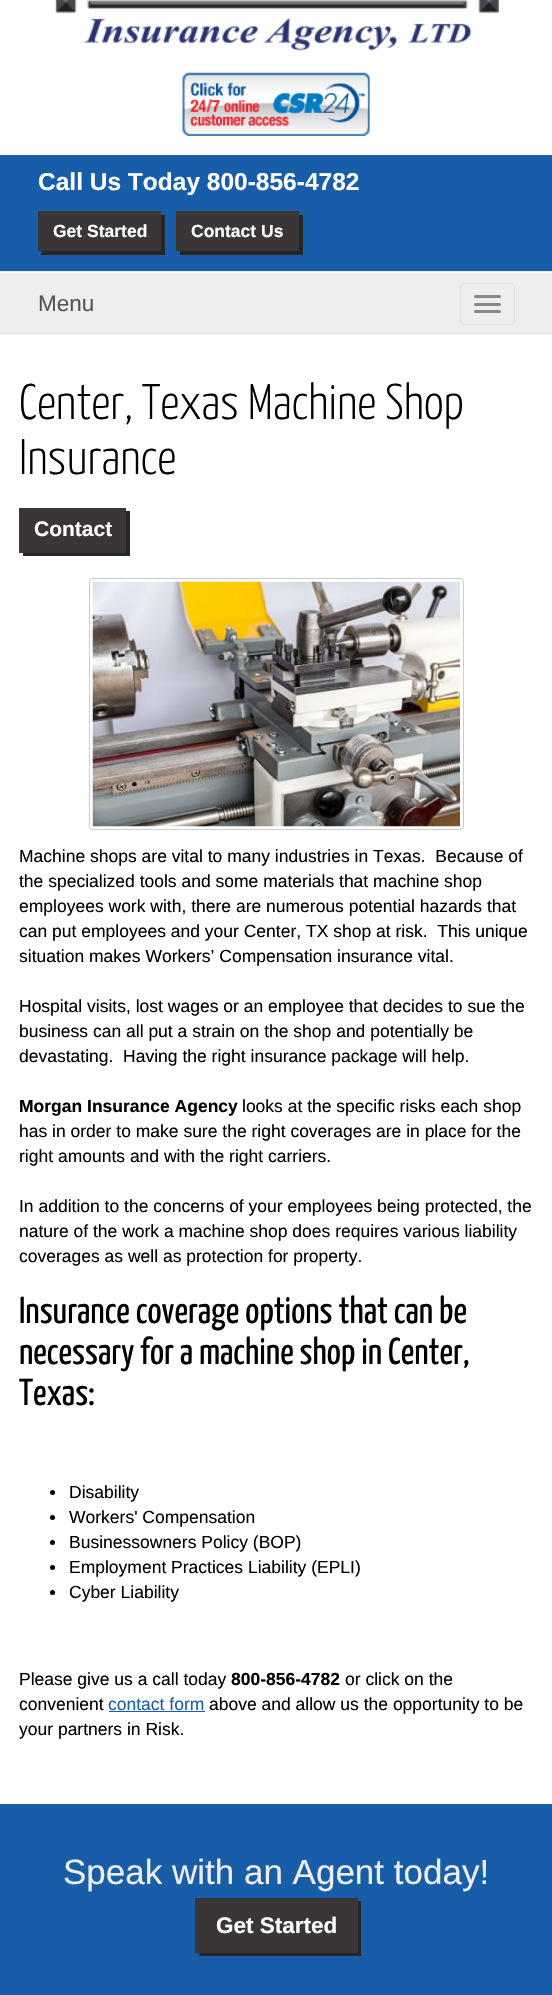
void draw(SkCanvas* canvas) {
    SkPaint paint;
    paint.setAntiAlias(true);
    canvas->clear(0xFFFFFFFF);
    paint.setColor(0xFFEEEEEE);
    canvas->drawRect(SkRect::MakeXYWH(0, 271, 552, 1), paint);
    canvas->drawImageRect(SkImages::DeferredFromEncodedData(SkData::MakeFromFileName("img1.png")), SkRect::MakeXYWH(55, 0, 445, 51), SkSamplingOptions());
    canvas->drawImageRect(SkImages::DeferredFromEncodedData(SkData::MakeFromFileName("img2.png")), SkRect::MakeXYWH(182, 72, 188, 64), SkSamplingOptions());
    paint.setColor(0xFF185DA8);
    canvas->drawRect(SkRect::MakeXYWH(0, 155, 552, 116), paint);
    SkFont font1(fontMgr->matchFamilyStyle("Liberation Sans", SkFontStyle::Bold()), 24.5f);
    font1.setSubpixel(true);
    paint.setColor(0xFFFFFFFF);
    canvas->drawString("Call Us Today 800-856-4782", 38, 190, font1, paint);
    paint.setColor(0xFF282525);
    canvas->drawPath(SkPathBuilder().moveTo(41, 251).lineTo(41, 255).lineTo(165, 255).lineTo(165, 215).lineTo(161, 215).lineTo(161, 251).close().detach(), paint);
    paint.setColor(0xFF3A3637);
    canvas->drawRect(SkRect::MakeXYWH(38, 211, 123, 40), paint);
    SkFont font2(fontMgr->matchFamilyStyle("Liberation Sans", SkFontStyle::Bold()), 17.5f);
    font2.setSubpixel(true);
    paint.setColor(0xFFFFFFFF);
    canvas->drawString("Get Started", 53, 237, font2, paint);
    paint.setColor(0xFF282525);
    canvas->drawPath(SkPathBuilder().moveTo(180, 251).lineTo(180, 255).lineTo(303, 255).lineTo(303, 215).lineTo(299, 215).lineTo(299, 251).close().detach(), paint);
    paint.setColor(0xFF3A3637);
    canvas->drawRect(SkRect::MakeXYWH(176, 211, 123, 40), paint);
    paint.setColor(0xFFFFFFFF);
    canvas->drawString("Contact Us", 191, 237, font2, paint);
    paint.setColor(0xFFEEEEEE);
    canvas->drawRect(SkRect::MakeXYWH(0, 273, 552, 62), paint);
    SkFont font3(fontMgr->matchFamilyStyle("Liberation Sans", SkFontStyle::Normal()), 22.5f);
    font3.setSubpixel(true);
    paint.setColor(0xFF555555);
    canvas->drawString("Menu", 38, 311, font3, paint);
    paint.setStyle(SkPaint::kStroke_Style);
    paint.setStrokeWidth(1);
    paint.setColor(0xFFDDDDDD);
    canvas->drawRoundRect(SkRect::MakeXYWH(460.5f, 283.5f, 54, 41), 4.5f, 4.5f, paint);
    paint.setStyle(SkPaint::kFill_Style);
    paint.setColor(0xFF888888);
    canvas->drawRoundRect(SkRect::MakeXYWH(474, 295, 27, 3), 1.5f, 1.5f, paint);
    canvas->drawRoundRect(SkRect::MakeXYWH(474, 303, 27, 3), 1.5f, 1.5f, paint);
    canvas->drawRoundRect(SkRect::MakeXYWH(474, 310, 27, 3), 1.5f, 1.5f, paint);
    SkFont font4(fontMgr->matchFamilyStyle("Yanone Kaffeesatz", SkFontStyle(300, SkFontStyle::kNormal_Width, SkFontStyle::kUpright_Slant)), 50);
    font4.setSubpixel(true);
    paint.setColor(0xFF000000);
    canvas->drawString("Center, Texas Machine Shop", 19, 419, font4, paint);
    canvas->drawString("Insurance", 19, 474, font4, paint);
    paint.setColor(0xFF282525);
    canvas->drawPath(SkPathBuilder().moveTo(23, 552).lineTo(23, 556).lineTo(130, 556).lineTo(130, 511).lineTo(126, 511).lineTo(126, 552).close().detach(), paint);
    paint.setColor(0xFF3A3637);
    canvas->drawRect(SkRect::MakeXYWH(19, 508, 107, 45), paint);
    SkFont font5(fontMgr->matchFamilyStyle("Liberation Sans", SkFontStyle::Bold()), 21);
    font5.setSubpixel(true);
    paint.setColor(0xFFFFFFFF);
    canvas->drawString("Contact", 34, 536, font5, paint);
    paint.setStyle(SkPaint::kStroke_Style);
    paint.setColor(0xFFCCCCCC);
    canvas->drawRoundRect(SkRect::MakeXYWH(89.5f, 578.5f, 374, 251), 3.5f, 3.5f, paint);
    canvas->drawImageRect(SkImages::DeferredFromEncodedData(SkData::MakeFromFileName("img3.png")), SkRect::MakeXYWH(92, 581, 368, 246), SkSamplingOptions());
    SkFont font6(fontMgr->matchFamilyStyle("Liberation Sans", SkFontStyle::Normal()), 17.5f);
    font6.setSubpixel(true);
    paint.setStyle(SkPaint::kFill_Style);
    paint.setColor(0xFF000000);
    canvas->drawString("Machine shops are vital to many industries in Texas.  Because of", 19, 862, font6, paint);
    canvas->drawString("the specialized tools and some materials that machine shop", 19, 887, font6, paint);
    canvas->drawString("employees work with, there are numerous potential hazards that", 19, 912, font6, paint);
    canvas->drawString("can put employees and your Center, TX shop at risk.  This unique", 19, 937, font6, paint);
    canvas->drawString("situation makes Workers’ Compensation insurance vital.", 19, 962, font6, paint);
    canvas->drawString("Hospital visits, lost wages or an employee that decides to sue the", 19, 1012, font6, paint);
    canvas->drawString("business can all put a strain on the shop and potentially be", 19, 1037, font6, paint);
    canvas->drawString("devastating.  Having the right insurance package will help.", 19, 1062, font6, paint);
    canvas->drawString("Morgan Insurance Agency", 19, 1112, font2, paint);
    canvas->drawString("looks at the specific risks each shop", 242, 1112, font6, paint);
    canvas->drawString("has in order to make sure the right coverages are in place for the", 19, 1137, font6, paint);
    canvas->drawString("right amounts and with the right carriers.", 19, 1162, font6, paint);
    canvas->drawString("In addition to the concerns of your employees being protected, the", 19, 1212, font6, paint);
    canvas->drawString("nature of the work a machine shop does requires various liability", 19, 1237, font6, paint);
    canvas->drawString("coverages as well as protection for property.", 19, 1262, font6, paint);
    SkFont font7(fontMgr->matchFamilyStyle("Yanone Kaffeesatz", SkFontStyle::Normal()), 37.5f);
    font7.setSubpixel(true);
    canvas->drawString("Insurance coverage options that can be", 19, 1323, font7, paint);
    canvas->drawString("necessary for a machine shop in Center,", 19, 1364, font7, paint);
    canvas->drawString("Texas:", 19, 1405, font7, paint);
    canvas->drawCircle(52.5f, 1492.5f, 2.5f, paint);
    canvas->drawString("Disability", 69, 1498, font6, paint);
    canvas->drawCircle(52.5f, 1517.5f, 2.5f, paint);
    canvas->drawString("Workers' Compensation", 69, 1523, font6, paint);
    canvas->drawCircle(52.5f, 1542.5f, 2.5f, paint);
    canvas->drawString("Businessowners Policy (BOP)", 69, 1548, font6, paint);
    canvas->drawCircle(52.5f, 1567.5f, 2.5f, paint);
    canvas->drawString("Employment Practices Liability (EPLI)", 69, 1573, font6, paint);
    canvas->drawCircle(52.5f, 1592.5f, 2.5f, paint);
    canvas->drawString("Cyber Liability", 69, 1598, font6, paint);
    canvas->drawString("Please give us a call today", 19, 1685, font6, paint);
    canvas->drawString("800-856-4782", 231, 1685, font2, paint);
    canvas->drawString("or click on the", 345, 1685, font6, paint);
    canvas->drawString("convenient", 19, 1710, font6, paint);
    paint.setColor(0xFF185DA8);
    canvas->drawString("contact form", 108, 1710, font6, paint);
    canvas->drawRect(SkRect::MakeXYWH(109, 1711, 96, 1), paint);
    paint.setColor(0xFF000000);
    canvas->drawString("above and allow us the opportunity to be", 209, 1710, font6, paint);
    canvas->drawString("your partners in Risk.", 19, 1735, font6, paint);
    paint.setColor(0xFF185DA8);
    canvas->drawRect(SkRect::MakeXYWH(0, 1804, 552, 191), paint);
    SkFont font8(fontMgr->matchFamilyStyle("Liberation Sans", SkFontStyle::Normal()), 35);
    font8.setSubpixel(true);
    paint.setColor(0xFFEEEEEE);
    canvas->drawString("Speak with an Agent today!", 63, 1884, font8, paint);
    paint.setColor(0xFF282525);
    canvas->drawPath(SkPathBuilder().moveTo(199, 1952).lineTo(199, 1956).lineTo(361, 1956).lineTo(361, 1901).lineTo(358, 1901).lineTo(358, 1952).close().detach(), paint);
    paint.setColor(0xFF3A3637);
    canvas->drawRect(SkRect::MakeXYWH(195, 1898, 163, 55), paint);
    SkFont font9(fontMgr->matchFamilyStyle("Liberation Sans", SkFontStyle::Bold()), 22.5f);
    font9.setSubpixel(true);
    paint.setColor(0xFFFFFFFF);
    canvas->drawString("Get Started", 216, 1933, font9, paint);
}
